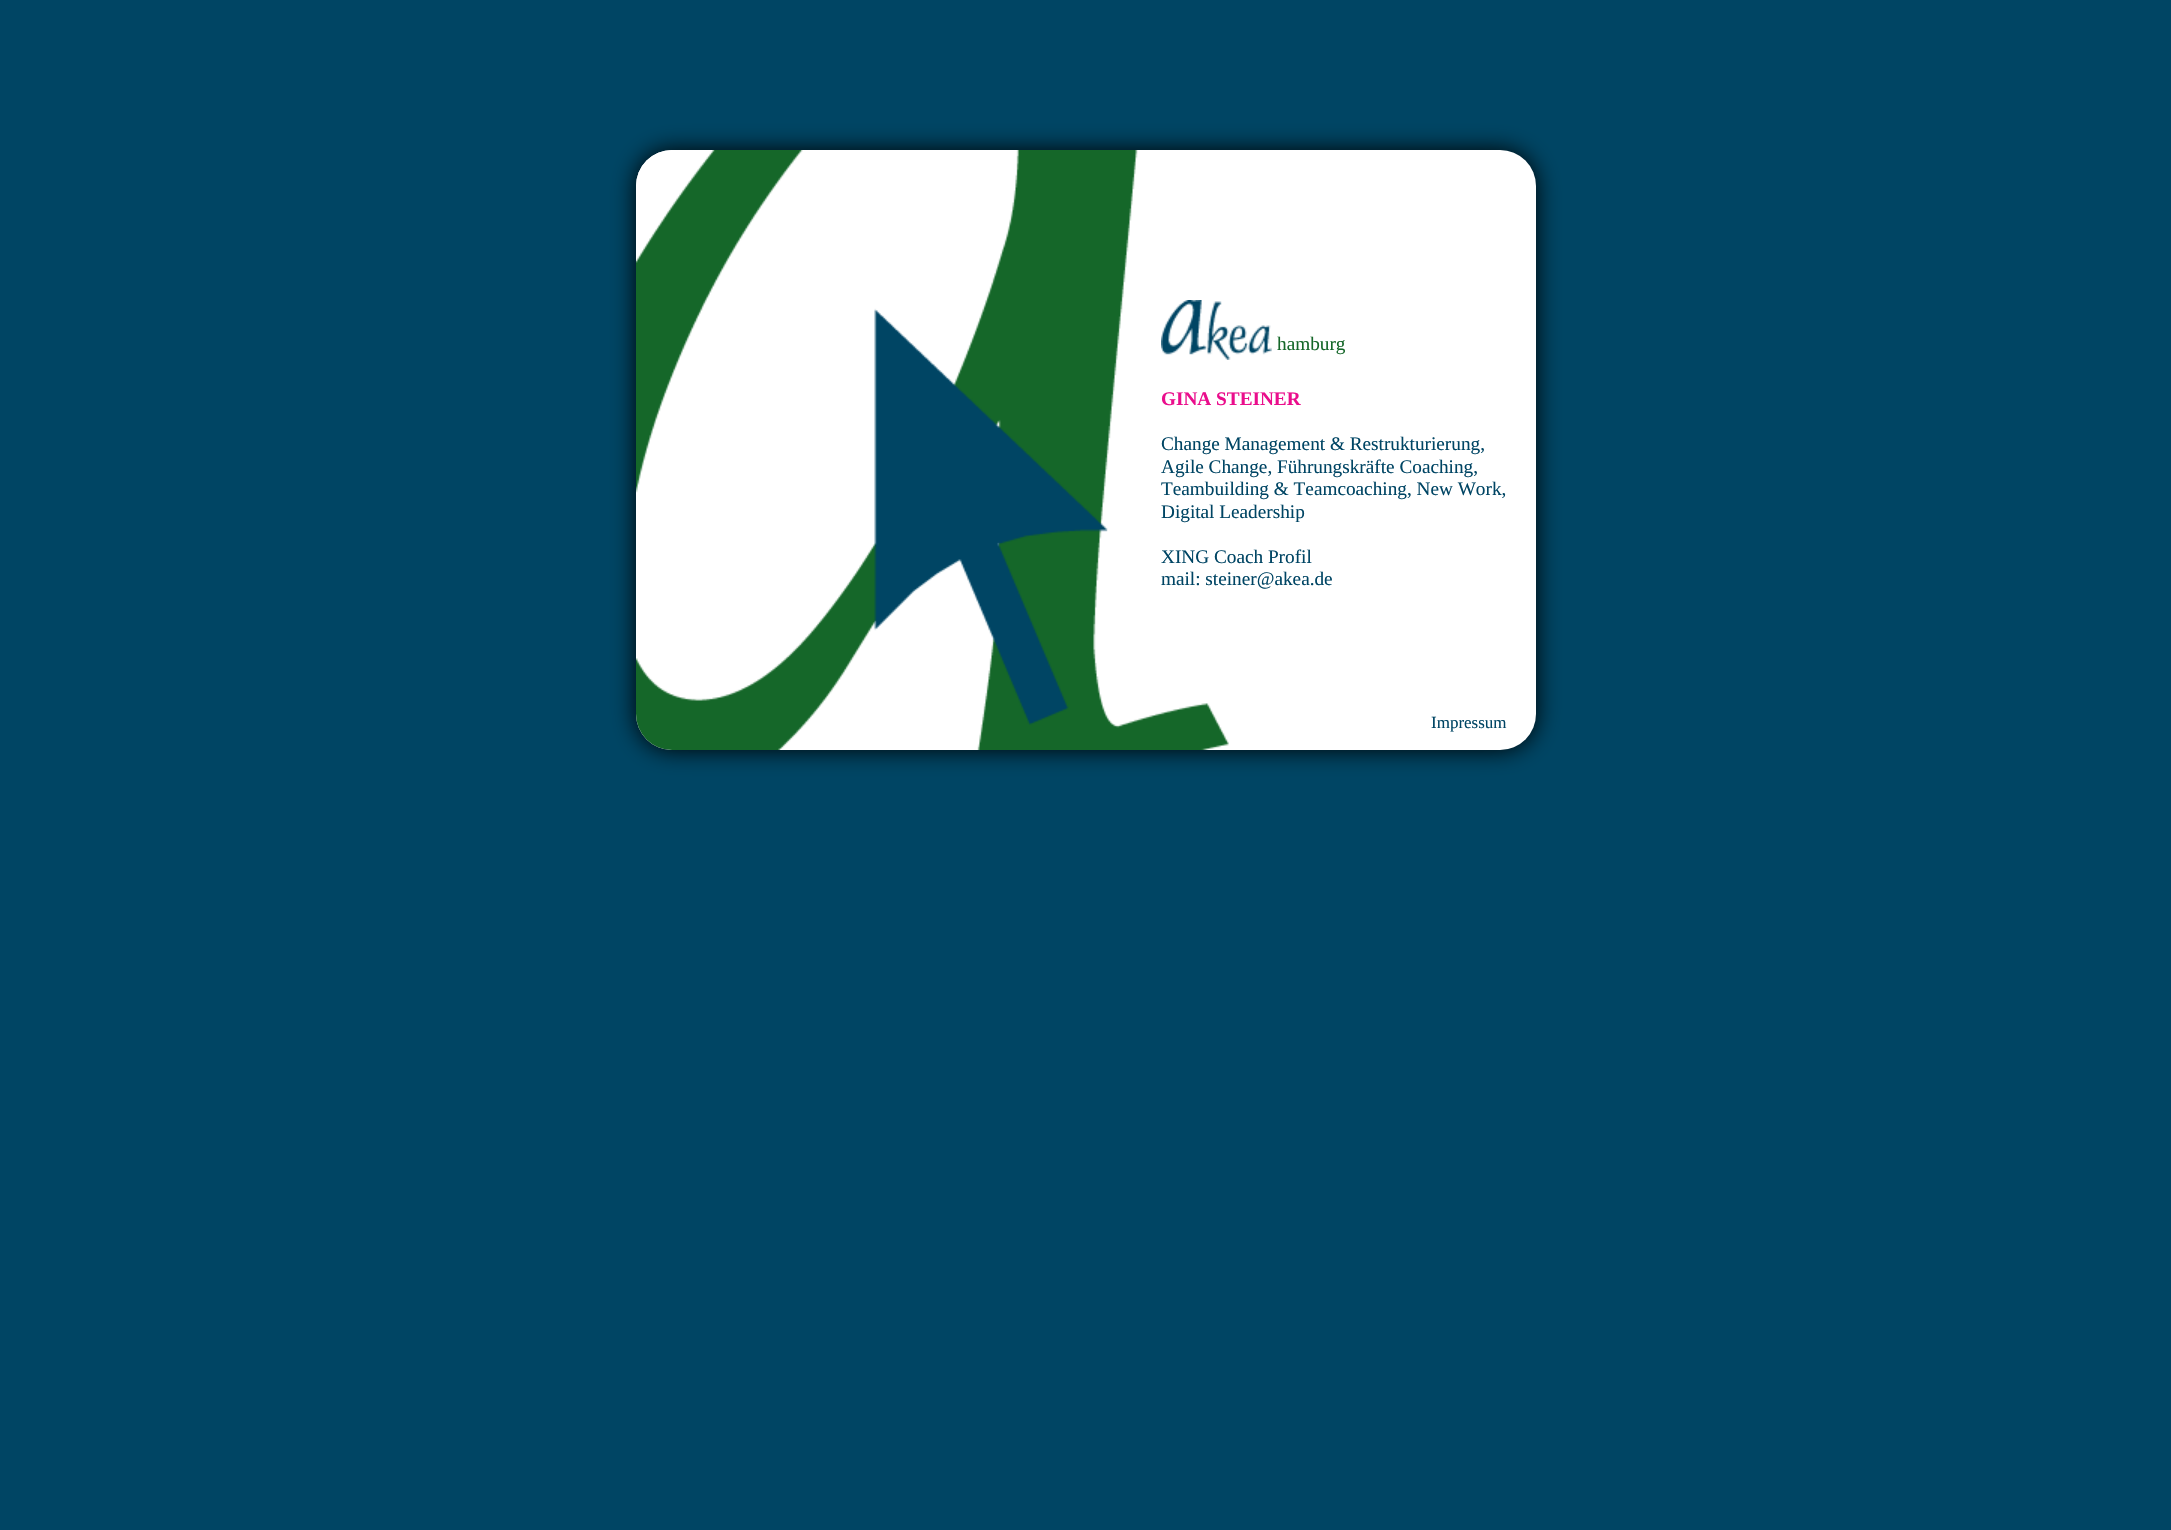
void draw(SkCanvas* canvas) {
    SkPaint paint;
    paint.setAntiAlias(true);
    canvas->clear(0xFF004564);
    paint.setColor(0xFF000000);
    paint.setMaskFilter(SkMaskFilter::MakeBlur(kNormal_SkBlurStyle, 12));
    canvas->drawRoundRect(SkRect::MakeXYWH(636, 150, 900, 600), 36, 36, paint);
    paint.setMaskFilter(nullptr);
    paint.setColor(0xFFFFFFFF);
    canvas->drawRoundRect(SkRect::MakeXYWH(636, 150, 900, 600), 36, 36, paint);
    canvas->drawImageRect(SkImages::DeferredFromEncodedData(SkData::MakeFromFileName("img1.png")), SkRect::MakeXYWH(636, 150, 593, 600), SkSamplingOptions());
    canvas->drawImageRect(SkImages::DeferredFromEncodedData(SkData::MakeFromFileName("img2.png")), SkRect::MakeXYWH(1161, 300, 111, 60), SkSamplingOptions());
    SkFont font1(fontMgr->matchFamilyStyle("Liberation Serif", SkFontStyle::Normal()), 19.25f);
    font1.setSubpixel(true);
    paint.setColor(0xFF156729);
    canvas->drawString("hamburg", 1277, 350, font1, paint);
    SkFont font2(fontMgr->matchFamilyStyle("Liberation Serif", SkFontStyle::Bold()), 19.25f);
    font2.setSubpixel(true);
    paint.setColor(0xFFEA0D8C);
    canvas->drawString("GINA STEINER", 1161, 405, font2, paint);
    paint.setColor(0xFF004564);
    canvas->drawString("Change Management & Restrukturierung,", 1161, 450, font1, paint);
    canvas->drawString("Agile Change, Führungskräfte Coaching,", 1161, 473, font1, paint);
    canvas->drawString("Teambuilding & Teamcoaching, New Work,", 1161, 495, font1, paint);
    canvas->drawString("Digital Leadership", 1161, 518, font1, paint);
    canvas->drawString("XING Coach Profil", 1161, 563, font1, paint);
    canvas->drawString("mail: steiner@akea.de", 1161, 585, font1, paint);
    SkFont font3(fontMgr->matchFamilyStyle("Liberation Serif", SkFontStyle::Normal()), 17);
    font3.setSubpixel(true);
    canvas->drawString("Impressum", 1431, 728, font3, paint);
}
